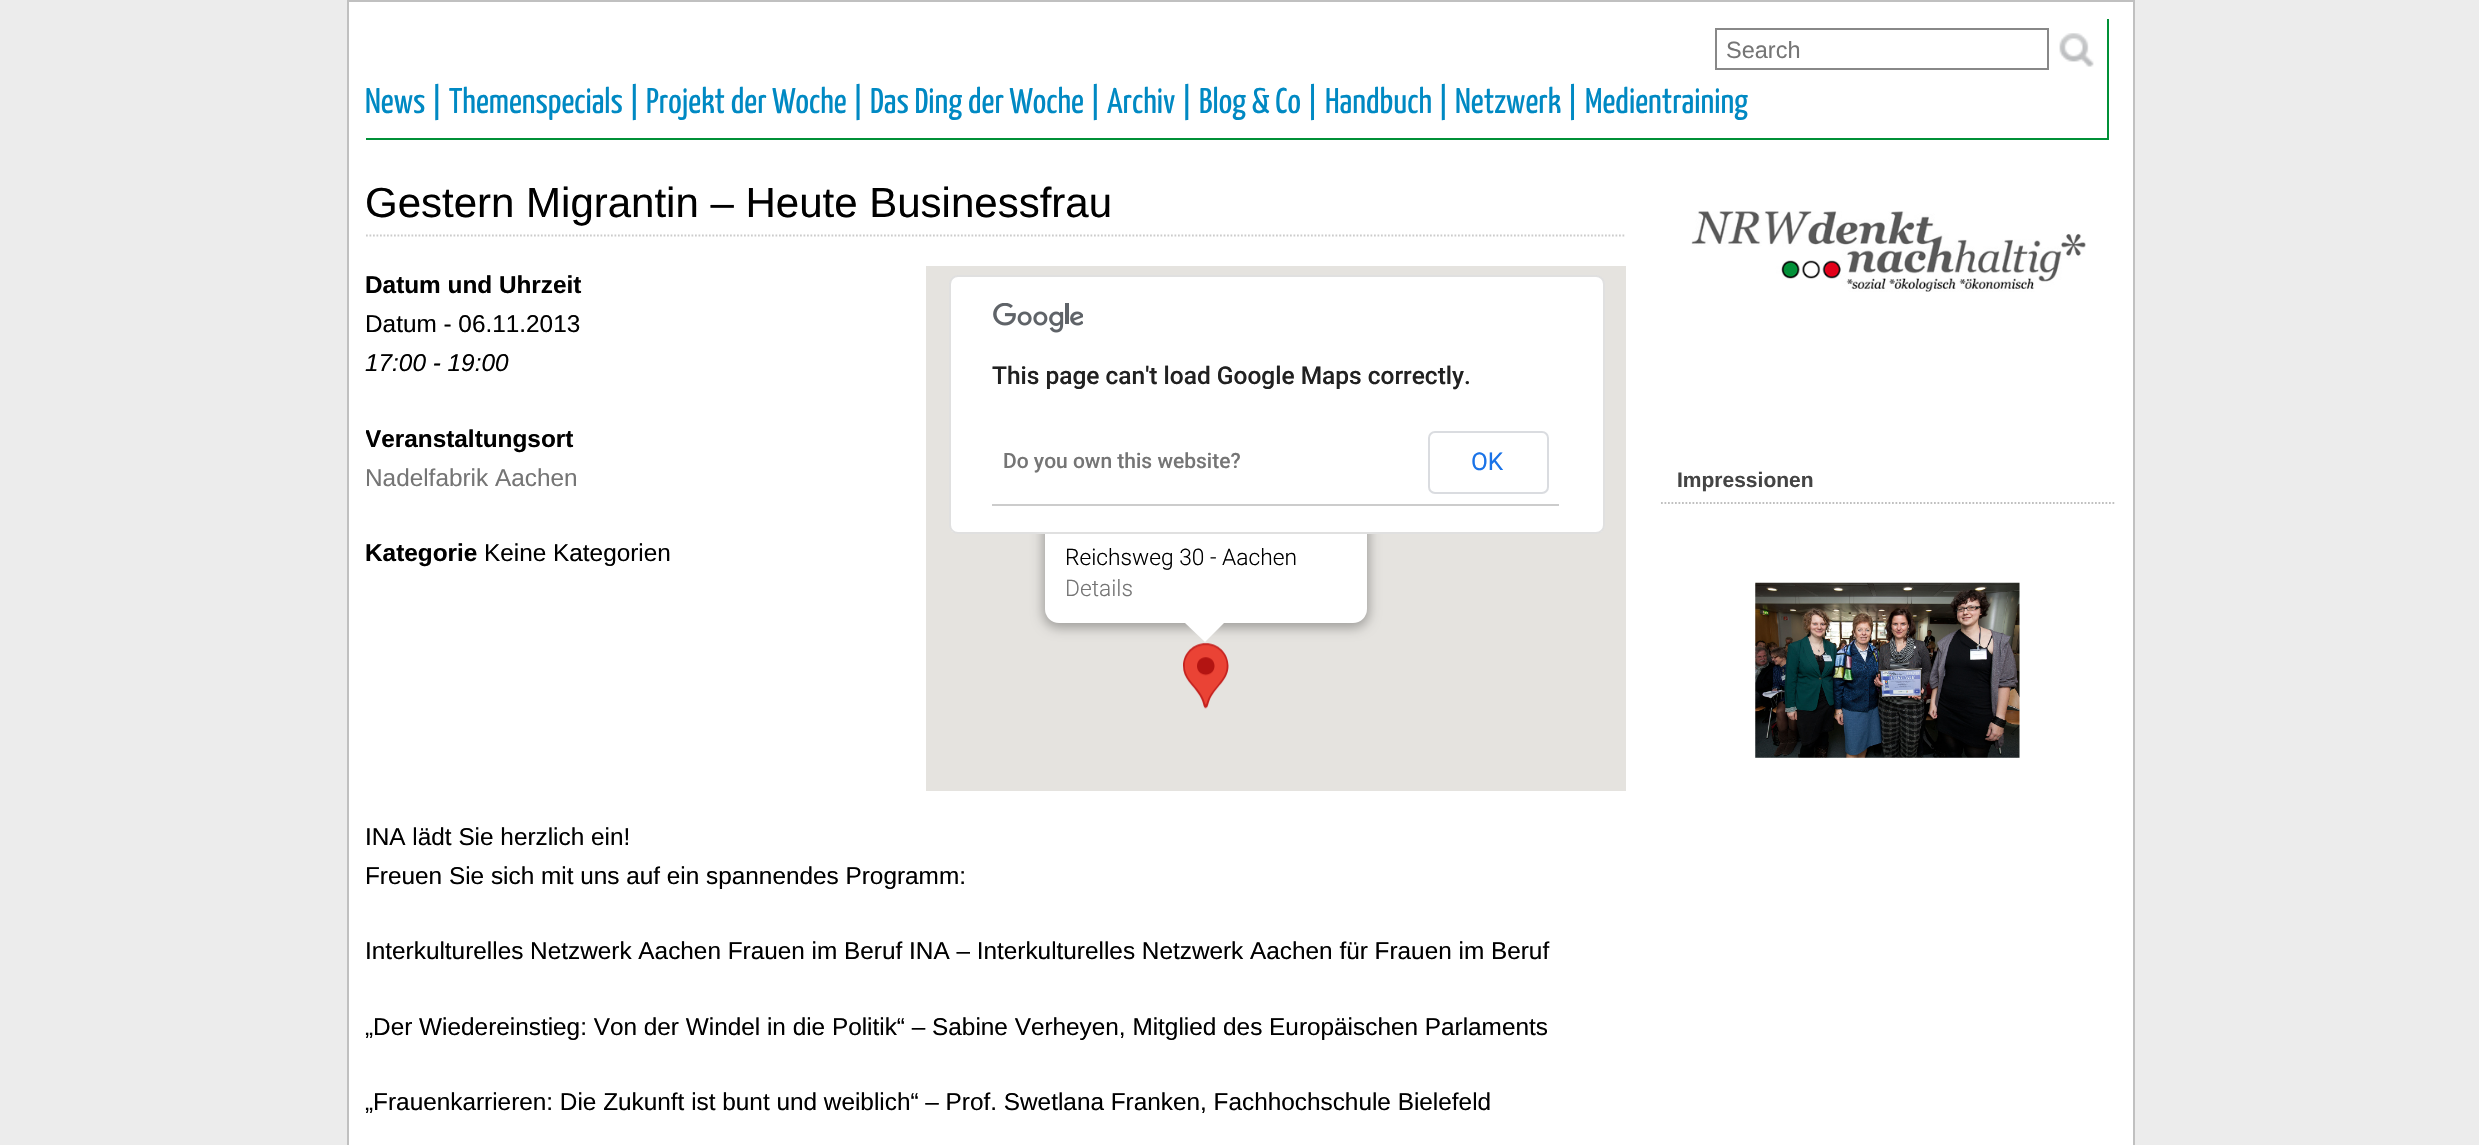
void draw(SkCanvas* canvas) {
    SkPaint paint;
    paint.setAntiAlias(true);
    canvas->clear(0xFFECECEC);
    paint.setColor(0xFFFFFFFF);
    canvas->drawRect(SkRect::MakeXYWH(348, 1, 1786, 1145), paint);
    paint.setStyle(SkPaint::kStroke_Style);
    paint.setStrokeWidth(2);
    paint.setColor(0xFFC0C0C0);
    canvas->drawRect(SkRect::MakeXYWH(348, 1, 1786, 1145), paint);
    paint.setStyle(SkPaint::kFill_Style);
    paint.setColor(0xFF009037);
    canvas->drawRect(SkRect::MakeXYWH(2107, 19, 2, 121), paint);
    canvas->drawRect(SkRect::MakeXYWH(366, 138, 1743, 2), paint);
    paint.setStyle(SkPaint::kStroke_Style);
    paint.setColor(0xFF888888);
    canvas->drawRect(SkRect::MakeXYWH(1716, 29, 332, 40), paint);
    SkFont font1(fontMgr->matchFamilyStyle("Liberation Sans", SkFontStyle::Normal()), 23.5f);
    font1.setSubpixel(true);
    paint.setStyle(SkPaint::kFill_Style);
    paint.setColor(0xFF757575);
    canvas->drawString("Search", 1726, 58, font1, paint);
    canvas->drawImageRect(SkImages::DeferredFromEncodedData(SkData::MakeFromFileName("img1.png")), SkRect::MakeXYWH(2059, 33, 35, 34), SkSamplingOptions());
    SkFont font2(fontMgr->matchFamilyStyle("Yanone Kaffeesatz", SkFontStyle(200, SkFontStyle::kNormal_Width, SkFontStyle::kUpright_Slant)), 35.75f);
    font2.setSubpixel(true);
    paint.setColor(0xFF0089C3);
    canvas->drawString("News |", 365, 113, font2, paint);
    canvas->drawString("Themenspecials |", 449, 113, font2, paint);
    canvas->drawString("Projekt der Woche |", 646, 113, font2, paint);
    canvas->drawString("Das Ding der Woche |", 870, 113, font2, paint);
    canvas->drawString("Archiv |", 1107, 113, font2, paint);
    canvas->drawString("Blog & Co |", 1199, 113, font2, paint);
    canvas->drawString("Handbuch |", 1325, 113, font2, paint);
    canvas->drawString("Netzwerk |", 1455, 113, font2, paint);
    canvas->drawString("Medientraining", 1585, 113, font2, paint);
    paint.setStyle(SkPaint::kStroke_Style);
    paint.setStrokeWidth(1.8f);
    paint.setColor(0xFFCCCCCC);
    paint.setPathEffect(SkDashPathEffect::Make({{1.75f, 1.75f}}, 0));
    canvas->drawPath(SkPathBuilder().moveTo(366, 235.5f).lineTo(1626, 235.5f).detach(), paint);
    paint.setPathEffect(nullptr);
    SkFont font3(fontMgr->matchFamilyStyle("Liberation Sans", SkFontStyle::Normal()), 42);
    font3.setSubpixel(true);
    paint.setStyle(SkPaint::kFill_Style);
    paint.setColor(0xFF000000);
    canvas->drawString("Gestern Migrantin – Heute Businessfrau", 365, 217, font3, paint);
    SkFont font4(fontMgr->matchFamilyStyle("Liberation Sans", SkFontStyle::Bold()), 24.35f);
    font4.setSubpixel(true);
    canvas->drawString("Datum und Uhrzeit", 365, 293, font4, paint);
    SkFont font5(fontMgr->matchFamilyStyle("Liberation Sans", SkFontStyle::Normal()), 24.35f);
    font5.setSubpixel(true);
    canvas->drawString("Datum - 06.11.2013", 365, 332, font5, paint);
    SkFont font6(fontMgr->matchFamilyStyle("Liberation Sans", SkFontStyle::Italic()), 24.35f);
    font6.setSubpixel(true);
    canvas->drawString("17:00 - 19:00", 365, 371, font6, paint);
    canvas->save();
    canvas->clipRect(SkRect::MakeXYWH(366, 240, 1260, 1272));
    canvas->drawString("Veranstaltungsort", 365, 447, font4, paint);
    canvas->restore();
    paint.setColor(0xFF757575);
    canvas->drawString("Nadelfabrik Aachen", 365, 486, font5, paint);
    paint.setColor(0xFFE5E3DF);
    canvas->drawRect(SkRect::MakeXYWH(926, 266, 700, 525), paint);
    canvas->drawImageRect(SkImages::DeferredFromEncodedData(SkData::MakeFromFileName("img3.png")), SkRect::MakeXYWH(1183, 643, 46, 66), SkSamplingOptions());
    paint.setColor(0x4D000000);
    paint.setMaskFilter(SkMaskFilter::MakeBlur(kNormal_SkBlurStyle, 6));
    canvas->drawRoundRect(SkRect::MakeXYWH(1043, 429, 326, 199), 16, 16, paint);
    paint.setMaskFilter(nullptr);
    paint.setColor(0xFFFFFFFF);
    canvas->drawRoundRect(SkRect::MakeXYWH(1045, 427, 322, 196), 14, 14, paint);
    canvas->drawRoundRect(SkRect::MakeXYWH(949, 275, 656, 259), 9, 9, paint);
    paint.setStyle(SkPaint::kStroke_Style);
    paint.setStrokeWidth(2);
    paint.setColor(0x1F000000);
    canvas->drawRoundRect(SkRect::MakeXYWH(950, 276, 654, 257), 8, 8, paint);
    canvas->drawImageRect(SkImages::DeferredFromEncodedData(SkData::MakeFromFileName("img2.png")), SkRect::MakeXYWH(993, 303, 90, 30), SkSamplingOptions());
    SkFont font7(fontMgr->matchFamilyStyle("Roboto", SkFontStyle(500, SkFontStyle::kNormal_Width, SkFontStyle::kUpright_Slant)), 24.5f);
    font7.setSubpixel(true);
    paint.setStyle(SkPaint::kFill_Style);
    paint.setColor(0xFF212121);
    canvas->drawString("This page can't load Google Maps correctly.", 992, 384, font7, paint);
    SkFont font8(fontMgr->matchFamilyStyle("Roboto", SkFontStyle(500, SkFontStyle::kNormal_Width, SkFontStyle::kUpright_Slant)), 21);
    font8.setSubpixel(true);
    paint.setColor(0xFF757575);
    canvas->drawString("Do you own this website?", 1003, 468, font8, paint);
    paint.setColor(0xFFCCCCCC);
    canvas->drawRect(SkRect::MakeXYWH(992, 504, 567, 2), paint);
    paint.setStyle(SkPaint::kStroke_Style);
    paint.setColor(0xFFDADCE0);
    canvas->drawRoundRect(SkRect::MakeXYWH(1429, 432, 119, 61), 6, 6, paint);
    SkFont font9(fontMgr->matchFamilyStyle("Roboto", SkFontStyle::Normal()), 24.5f);
    font9.setSubpixel(true);
    paint.setStyle(SkPaint::kFill_Style);
    paint.setColor(0xFF1A73E8);
    canvas->drawString("OK", 1471, 470, font9, paint);
    SkFont font10(fontMgr->matchFamilyStyle("Roboto", SkFontStyle(300, SkFontStyle::kNormal_Width, SkFontStyle::kUpright_Slant)), 22.75f);
    font10.setSubpixel(true);
    paint.setColor(0xFF000000);
    canvas->drawString("Reichsweg 30 - Aachen", 1065, 565, font10, paint);
    paint.setColor(0xFF757575);
    canvas->drawString("Details", 1065, 596, font10, paint);
    paint.setColor(0xFFFFFFFF);
    canvas->drawPath(SkPathBuilder().moveTo(1185, 621).lineTo(1185, 623).lineTo(1205, 642).lineTo(1226, 621).close().detach(), paint);
    paint.setColor(0xFF000000);
    canvas->drawString("Kategorie", 365, 561, font4, paint);
    canvas->drawString("Keine Kategorien", 484, 561, font5, paint);
    canvas->drawString("INA lädt Sie herzlich ein!", 365, 845, font5, paint);
    canvas->drawString("Freuen Sie sich mit uns auf ein spannendes Programm:", 365, 884, font5, paint);
    canvas->drawString("Interkulturelles Netzwerk Aachen Frauen im Beruf INA – Interkulturelles Netzwerk Aachen für Frauen im Beruf", 365, 959, font5, paint);
    canvas->drawString("„Der Wiedereinstieg: Von der Windel in die Politik“ – Sabine Verheyen, Mitglied des Europäischen Parlaments", 365, 1035, font5, paint);
    canvas->drawString("„Frauenkarrieren: Die Zukunft ist bunt und weiblich“ – Prof. Swetlana Franken, Fachhochschule Bielefeld", 365, 1110, font5, paint);
    canvas->drawImageRect(SkImages::DeferredFromEncodedData(SkData::MakeFromFileName("img4.png")), SkRect::MakeXYWH(1691, 211, 395, 81), SkSamplingOptions());
    paint.setStyle(SkPaint::kStroke_Style);
    paint.setStrokeWidth(1.8f);
    paint.setColor(0xFFC0C0C0);
    paint.setPathEffect(SkDashPathEffect::Make({{1.75f, 1.75f}}, 0));
    canvas->drawPath(SkPathBuilder().moveTo(1661, 503).lineTo(2116, 503).detach(), paint);
    paint.setPathEffect(nullptr);
    SkFont font11(fontMgr->matchFamilyStyle("Liberation Sans", SkFontStyle::Bold()), 21);
    font11.setSubpixel(true);
    paint.setStyle(SkPaint::kFill_Style);
    paint.setColor(0xFF444444);
    canvas->drawString("Impressionen", 1677, 487, font11, paint);
    canvas->drawImageRect(SkImages::DeferredFromEncodedData(SkData::MakeFromFileName("img5.png")), SkRect::MakeXYWH(1755, 582, 265, 176), SkSamplingOptions());
}
